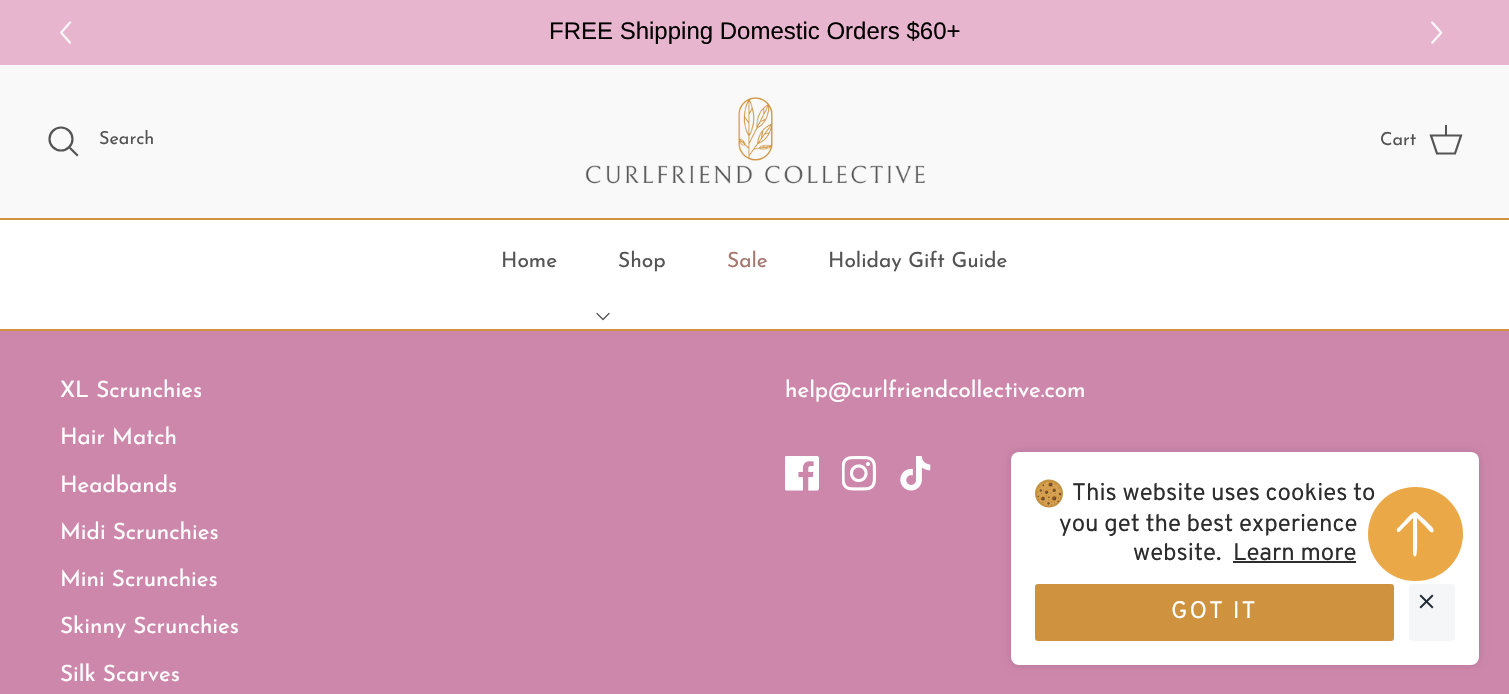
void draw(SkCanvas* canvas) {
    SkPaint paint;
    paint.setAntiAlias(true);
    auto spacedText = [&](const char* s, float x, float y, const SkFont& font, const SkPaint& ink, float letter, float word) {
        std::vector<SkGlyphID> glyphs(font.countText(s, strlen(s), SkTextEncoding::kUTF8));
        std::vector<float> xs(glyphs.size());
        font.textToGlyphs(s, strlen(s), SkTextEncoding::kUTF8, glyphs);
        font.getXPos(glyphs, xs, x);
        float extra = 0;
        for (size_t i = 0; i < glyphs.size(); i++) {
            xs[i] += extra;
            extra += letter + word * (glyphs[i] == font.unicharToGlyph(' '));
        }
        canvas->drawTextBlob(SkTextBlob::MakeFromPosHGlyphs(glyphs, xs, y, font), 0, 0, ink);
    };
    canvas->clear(0xFFCD87AB);
    paint.setColor(0xFFE7B5CE);
    canvas->drawRect(SkRect::MakeXYWH(0, 0, 1509, 65), paint);
    canvas->drawImageRect(SkImages::DeferredFromEncodedData(SkData::MakeFromFileName("img1.png")), SkRect::MakeXYWH(60, 21, 12, 23), SkSamplingOptions());
    SkFont font1(fontMgr->matchFamilyStyle("Liberation Sans", SkFontStyle::Normal()), 24);
    font1.setSubpixel(true);
    paint.setColor(0xFF000000);
    canvas->drawString("FREE Shipping Domestic Orders $60+", 549, 39, font1, paint);
    canvas->drawImageRect(SkImages::DeferredFromEncodedData(SkData::MakeFromFileName("img2.png")), SkRect::MakeXYWH(1431, 21, 12, 23), SkSamplingOptions());
    paint.setColor(0xFFF9F9F9);
    canvas->drawRect(SkRect::MakeXYWH(0, 65, 1509, 153), paint);
    paint.setColor(0xFFCF923E);
    canvas->drawRect(SkRect::MakeXYWH(0, 218, 1509, 2), paint);
    paint.setStyle(SkPaint::kStroke_Style);
    paint.setStrokeWidth(2.2f);
    paint.setColor(0xFF545454);
    canvas->drawCircle(61, 139, 11.5f, paint);
    SkFont font2(fontMgr->matchFamilyStyle("Josefin Sans", SkFontStyle(100, SkFontStyle::kNormal_Width, SkFontStyle::kUpright_Slant)), 18);
    font2.setSubpixel(true);
    paint.setStyle(SkPaint::kFill_Style);
    canvas->drawString("Search", 99, 144, font2, paint);
    paint.setStyle(SkPaint::kStroke_Style);
    paint.setStrokeCap(SkPaint::kSquare_Cap);
    canvas->drawPath(SkPathBuilder().moveTo(70.5f, 148.5f).lineTo(77, 155).detach(), paint);
    canvas->drawImageRect(SkImages::DeferredFromEncodedData(SkData::MakeFromFileName("img3.png")), SkRect::MakeXYWH(585, 97, 340, 87), SkSamplingOptions());
    paint.setStyle(SkPaint::kFill_Style);
    canvas->drawString("Cart", 1380, 145, font2, paint);
    paint.setStyle(SkPaint::kStroke_Style);
    paint.setStrokeCap(SkPaint::kButt_Cap);
    canvas->drawPath(SkPathBuilder().moveTo(1431, 135.5f).lineTo(1461, 135.5f).lineTo(1455, 153.5f).lineTo(1437, 153.5f).close().detach(), paint);
    paint.setStyle(SkPaint::kFill_Style);
    canvas->drawRect(SkRect::MakeXYWH(1445, 125, 2, 11), paint);
    paint.setColor(0xFFCF923E);
    canvas->drawRect(SkRect::MakeXYWH(0, 329, 1509, 2), paint);
    paint.setColor(0xFFFFFFFF);
    canvas->drawRect(SkRect::MakeXYWH(0, 220, 1509, 109), paint);
    SkFont font3(fontMgr->matchFamilyStyle("Josefin Sans", SkFontStyle(100, SkFontStyle::kNormal_Width, SkFontStyle::kUpright_Slant)), 21);
    font3.setSubpixel(true);
    paint.setColor(0xFF545454);
    canvas->drawString("Home", 501, 267, font3, paint);
    canvas->drawString("Shop", 618, 267, font3, paint);
    paint.setStyle(SkPaint::kStroke_Style);
    paint.setStrokeWidth(1.3f);
    paint.setStrokeCap(SkPaint::kRound_Cap);
    paint.setStrokeJoin(SkPaint::kRound_Join);
    canvas->drawPath(SkPathBuilder().moveTo(597, 313.5f).lineTo(603, 319.5f).lineTo(609, 313.5f).detach(), paint);
    paint.setStyle(SkPaint::kFill_Style);
    paint.setColor(0xFFA57970);
    canvas->drawString("Sale", 727, 267, font3, paint);
    paint.setColor(0xFF545454);
    canvas->drawString("Holiday Gift Guide", 828, 267, font3, paint);
    SkFont font4(fontMgr->matchFamilyStyle("Josefin Sans", SkFontStyle(100, SkFontStyle::kNormal_Width, SkFontStyle::kUpright_Slant)), 22.5f);
    font4.setSubpixel(true);
    paint.setColor(0xFFFFFFFF);
    canvas->drawString("XL Scrunchies", 60, 397, font4, paint);
    canvas->drawString("Hair Match", 60, 444, font4, paint);
    canvas->drawString("Headbands", 60, 492, font4, paint);
    canvas->drawString("Midi Scrunchies", 60, 539, font4, paint);
    canvas->drawString("Mini Scrunchies", 60, 586, font4, paint);
    canvas->drawString("Skinny Scrunchies", 60, 633, font4, paint);
    canvas->drawString("Silk Scarves", 60, 681, font4, paint);
    canvas->drawString("help@curlfriendcollective.com", 785, 397, font4, paint);
    canvas->drawImageRect(SkImages::DeferredFromEncodedData(SkData::MakeFromFileName("img4.png")), SkRect::MakeXYWH(785, 456, 34, 35), SkSamplingOptions());
    canvas->drawImageRect(SkImages::DeferredFromEncodedData(SkData::MakeFromFileName("img5.png")), SkRect::MakeXYWH(842, 456, 34, 35), SkSamplingOptions());
    canvas->drawImageRect(SkImages::DeferredFromEncodedData(SkData::MakeFromFileName("img6.png")), SkRect::MakeXYWH(900, 456, 31, 35), SkSamplingOptions());
    canvas->drawRoundRect(SkRect::MakeXYWH(1011, 452, 468, 213), 8, 8, paint);
    canvas->save();
    canvas->clipPath(SkPathBuilder(SkPathFillType::kEvenOdd).moveTo(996, 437).lineTo(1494, 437).lineTo(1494, 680).lineTo(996, 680).close().moveTo(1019, 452).lineTo(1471, 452).cubicTo(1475.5f, 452, 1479, 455.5f, 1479, 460).lineTo(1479, 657).cubicTo(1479, 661.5f, 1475.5f, 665, 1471, 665).lineTo(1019, 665).cubicTo(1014.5f, 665, 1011, 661.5f, 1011, 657).lineTo(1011, 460).cubicTo(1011, 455.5f, 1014.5f, 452, 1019, 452).close().detach(), true);
    paint.setColor(0x1F000000);
    paint.setMaskFilter(SkMaskFilter::MakeBlur(kNormal_SkBlurStyle, 4.5f));
    canvas->drawRoundRect(SkRect::MakeXYWH(1011, 452, 468, 213), 8, 8, paint);
    paint.setMaskFilter(nullptr);
    canvas->restore();
    SkFont font5(fontMgr->matchFamilyStyle("Overpass", SkFontStyle::Normal()), 24);
    font5.setSubpixel(true);
    paint.setColor(0xFF2D2D2D);
    canvas->drawString("This website uses cookies to", 1072, 500, font5, paint);
    paint.setColor(0xFFEBA847);
    canvas->drawRoundRect(SkRect::MakeXYWH(1368, 487, 95, 94), 47, 47, paint);
    paint.setColor(0xFFFFFFFF);
    canvas->drawPath(SkPathBuilder().moveTo(1433, 532).cubicTo(1431, 534, 1427, 528, 1426, 527).lineTo(1417, 518).cubicTo(1417, 523, 1418, 555, 1416, 556).cubicTo(1413, 558, 1413, 553, 1413, 549).lineTo(1413, 518).lineTo(1404, 527).cubicTo(1404, 527, 1398, 535, 1397, 531).cubicTo(1396, 529, 1399, 527, 1400, 526).cubicTo(1402, 524, 1413, 511, 1415, 512).cubicTo(1417, 512, 1423, 519, 1425, 520).lineTo(1431, 526).cubicTo(1432, 527, 1435, 530, 1433, 532).close().detach(), paint);
    canvas->drawImageRect(SkImages::DeferredFromEncodedData(SkData::MakeFromFileName("img7.png")), SkRect::MakeXYWH(1035, 479, 28, 29), SkSamplingOptions());
    paint.setColor(0xFF2D2D2D);
    canvas->drawString("you get the best experience", 1059, 531, font5, paint);
    canvas->drawString("website.", 1133, 560, font5, paint);
    canvas->drawString("Learn more", 1233, 560, font5, paint);
    canvas->drawRect(SkRect::MakeXYWH(1233, 561, 123, 2), paint);
    paint.setColor(0xFFCF923E);
    canvas->drawRoundRect(SkRect::MakeXYWH(1035, 584, 359, 57), 3, 3, paint);
    paint.setColor(0xFFFFFFFF);
    spacedText("GOT IT", 1171, 618, font5, paint, 2, 0);
    paint.setColor(0xFFF4F6F8);
    canvas->drawRoundRect(SkRect::MakeXYWH(1409, 584, 46, 57), 3, 3, paint);
    canvas->drawImageRect(SkImages::DeferredFromEncodedData(SkData::MakeFromFileName("img8.png")), SkRect::MakeXYWH(1419, 594, 15, 15), SkSamplingOptions());
}
